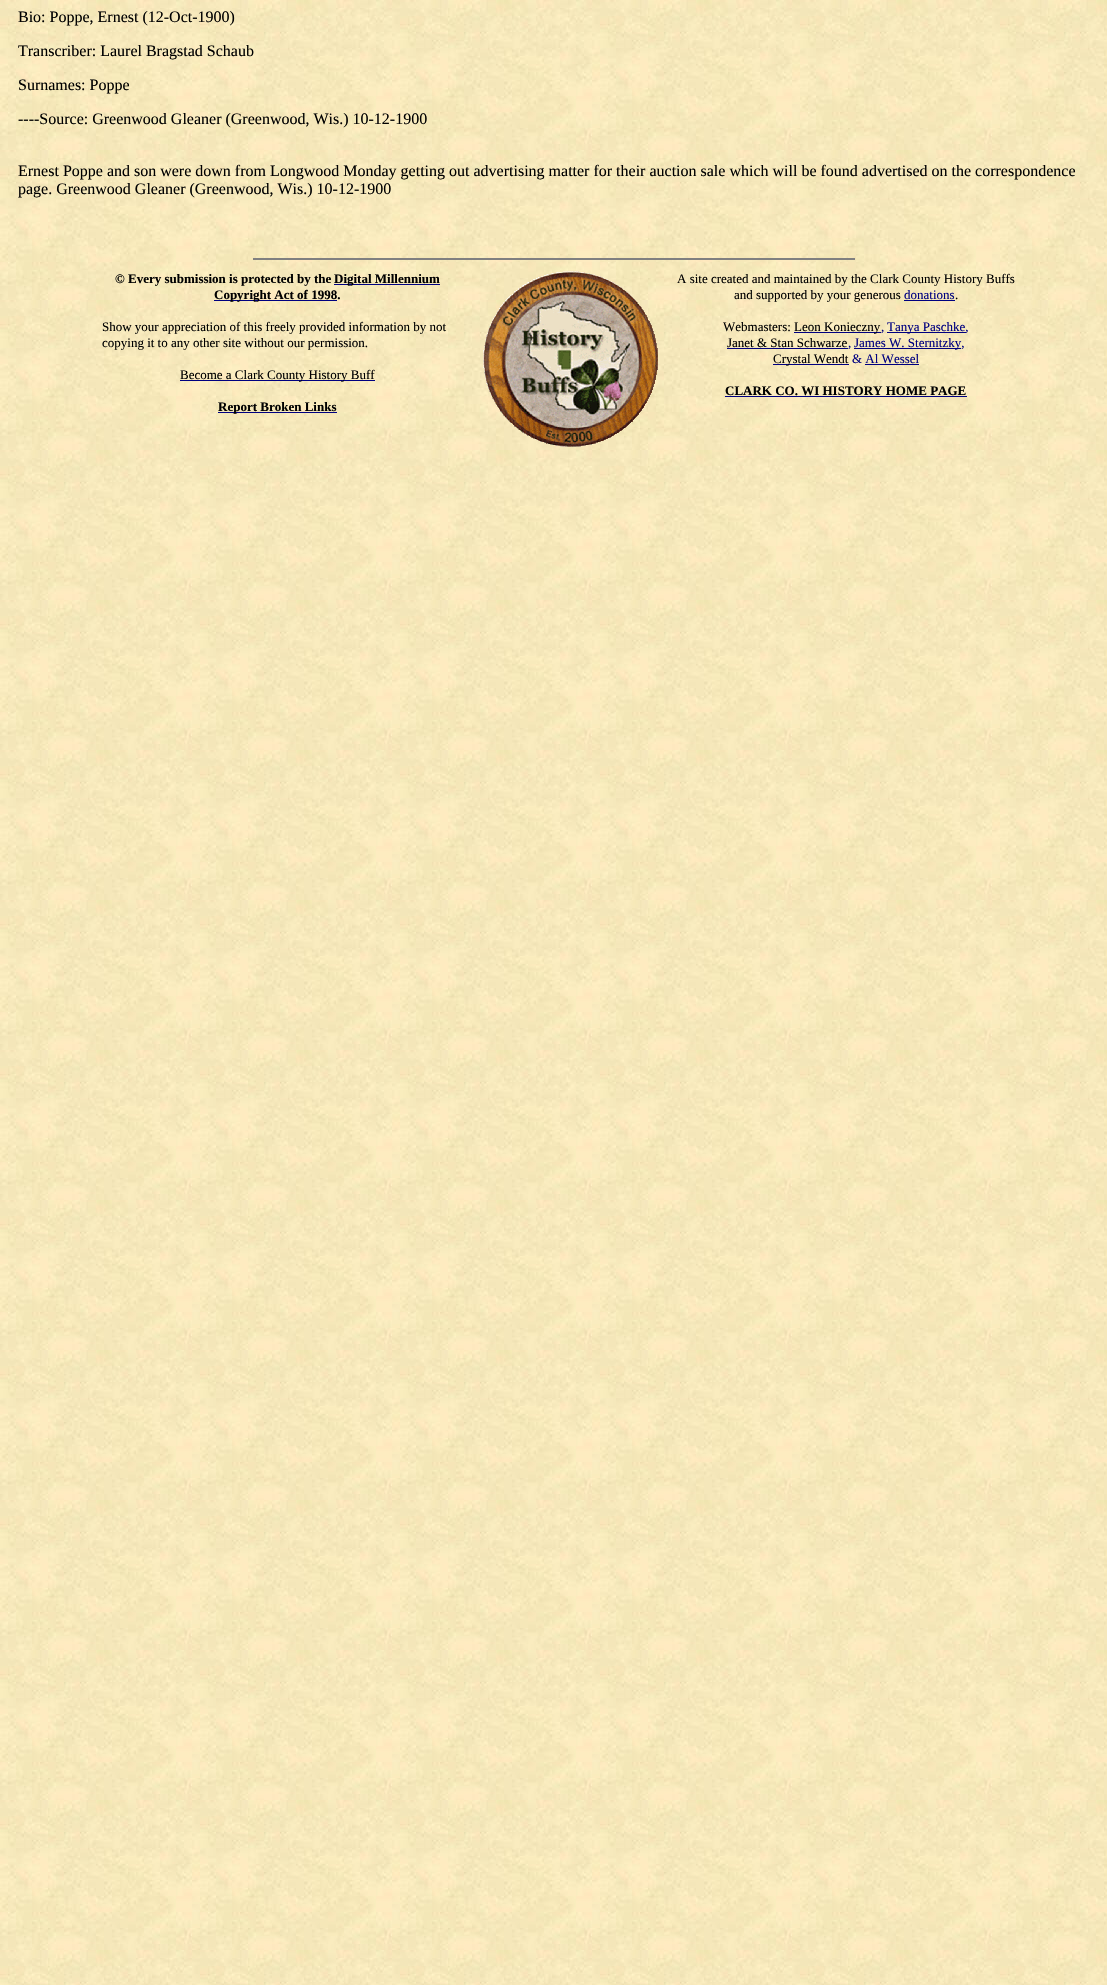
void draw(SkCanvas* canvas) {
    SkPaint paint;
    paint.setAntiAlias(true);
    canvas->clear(0xFFFFFFFF);
    canvas->drawImageRect(SkImages::DeferredFromEncodedData(SkData::MakeFromFileName("img1.png")), SkRect::MakeXYWH(0, 0, 1107, 1985), SkSamplingOptions());
    SkFont font1(fontMgr->matchFamilyStyle("Liberation Serif", SkFontStyle::Normal()), 16);
    font1.setSubpixel(true);
    paint.setColor(0xFF000000);
    canvas->drawString("Bio: Poppe, Ernest (12-Oct-1900)", 18, 22, font1, paint);
    canvas->drawString("Transcriber: Laurel Bragstad Schaub", 18, 56, font1, paint);
    canvas->drawString("Surnames: Poppe", 18, 90, font1, paint);
    canvas->drawString("----Source: Greenwood Gleaner (Greenwood, Wis.) 10-12-1900", 18, 124, font1, paint);
    canvas->drawString("Ernest Poppe and son were down from Longwood Monday getting out advertising matter for their auction sale which will be found advertised on the correspondence", 18, 176, font1, paint);
    canvas->drawString("page. Greenwood Gleaner (Greenwood, Wis.) 10-12-1900", 18, 194, font1, paint);
    paint.setColor(0xFF808080);
    canvas->drawRect(SkRect::MakeXYWH(253, 258, 602, 2), paint);
    SkFont font2(fontMgr->matchFamilyStyle("Liberation Serif", SkFontStyle::Bold()), 13);
    font2.setSubpixel(true);
    paint.setColor(0xFF000000);
    canvas->drawString("© Every submission is protected by the", 115, 283, font2, paint);
    paint.setColor(0xFF000080);
    canvas->drawRect(SkRect::MakeXYWH(334, 284, 106, 1), paint);
    paint.setColor(0xFF000000);
    canvas->drawString("Digital Millennium", 334, 283, font2, paint);
    paint.setColor(0xFF000080);
    canvas->drawRect(SkRect::MakeXYWH(214, 300, 123, 1), paint);
    paint.setColor(0xFF000000);
    canvas->drawString("Copyright Act of 1998.", 214, 299, font2, paint);
    SkFont font3(fontMgr->matchFamilyStyle("Liberation Serif", SkFontStyle::Normal()), 13);
    font3.setSubpixel(true);
    canvas->drawString("Show your appreciation of this freely provided information by not", 102, 331, font3, paint);
    canvas->drawString("copying it to any other site without our permission.", 102, 347, font3, paint);
    paint.setColor(0xFF000080);
    canvas->drawRect(SkRect::MakeXYWH(180, 380, 195, 1), paint);
    paint.setColor(0xFF000000);
    canvas->drawString("Become a Clark County History Buff", 180, 379, font3, paint);
    paint.setColor(0xFF000080);
    canvas->drawRect(SkRect::MakeXYWH(218, 412, 119, 1), paint);
    paint.setColor(0xFF000000);
    canvas->drawString("Report Broken Links", 218, 411, font2, paint);
    canvas->drawImageRect(SkImages::DeferredFromEncodedData(SkData::MakeFromFileName("img2.png")), SkRect::MakeXYWH(483, 271, 175, 176), SkSamplingOptions());
    canvas->drawString("A site created and maintained by the Clark County History Buffs", 677, 283, font3, paint);
    canvas->drawString("and supported by your generous", 734, 299, font3, paint);
    paint.setColor(0xFF000080);
    canvas->drawString("donations", 904, 299, font3, paint);
    paint.setColor(0xFF000000);
    canvas->drawString(".", 955, 299, font3, paint);
    paint.setColor(0xFF000080);
    canvas->drawRect(SkRect::MakeXYWH(904, 300, 51, 1), paint);
    paint.setColor(0xFF000000);
    canvas->drawString("Webmasters: Leon", 723, 331, font3, paint);
    paint.setColor(0xFF000080);
    canvas->drawRect(SkRect::MakeXYWH(794, 332, 87, 1), paint);
    paint.setColor(0xFF000000);
    canvas->drawString("Konieczny", 824, 331, font3, paint);
    paint.setColor(0xFF000080);
    canvas->drawString(",", 881, 331, font3, paint);
    canvas->drawRect(SkRect::MakeXYWH(887, 332, 79, 1), paint);
    canvas->drawString("Tanya Paschke,", 887, 331, font3, paint);
    paint.setColor(0xFF000000);
    canvas->drawString("Janet & Stan Schwarze", 727, 347, font3, paint);
    paint.setColor(0xFF000080);
    canvas->drawString(",", 848, 347, font3, paint);
    canvas->drawRect(SkRect::MakeXYWH(727, 348, 121, 1), paint);
    canvas->drawRect(SkRect::MakeXYWH(854, 348, 107, 1), paint);
    canvas->drawString("James W. Sternitzky,", 854, 347, font3, paint);
    canvas->drawRect(SkRect::MakeXYWH(773, 364, 76, 1), paint);
    paint.setColor(0xFF000000);
    canvas->drawString("Crystal Wendt", 773, 363, font3, paint);
    paint.setColor(0xFF000080);
    canvas->drawString("& Al Wessel", 852, 363, font3, paint);
    canvas->drawRect(SkRect::MakeXYWH(865, 364, 54, 1), paint);
    paint.setColor(0xFF000000);
    canvas->drawString("CLARK CO. WI HISTORY HOME PAGE", 725, 395, font2, paint);
    paint.setColor(0xFF000080);
    canvas->drawRect(SkRect::MakeXYWH(725, 396, 242, 1), paint);
}
